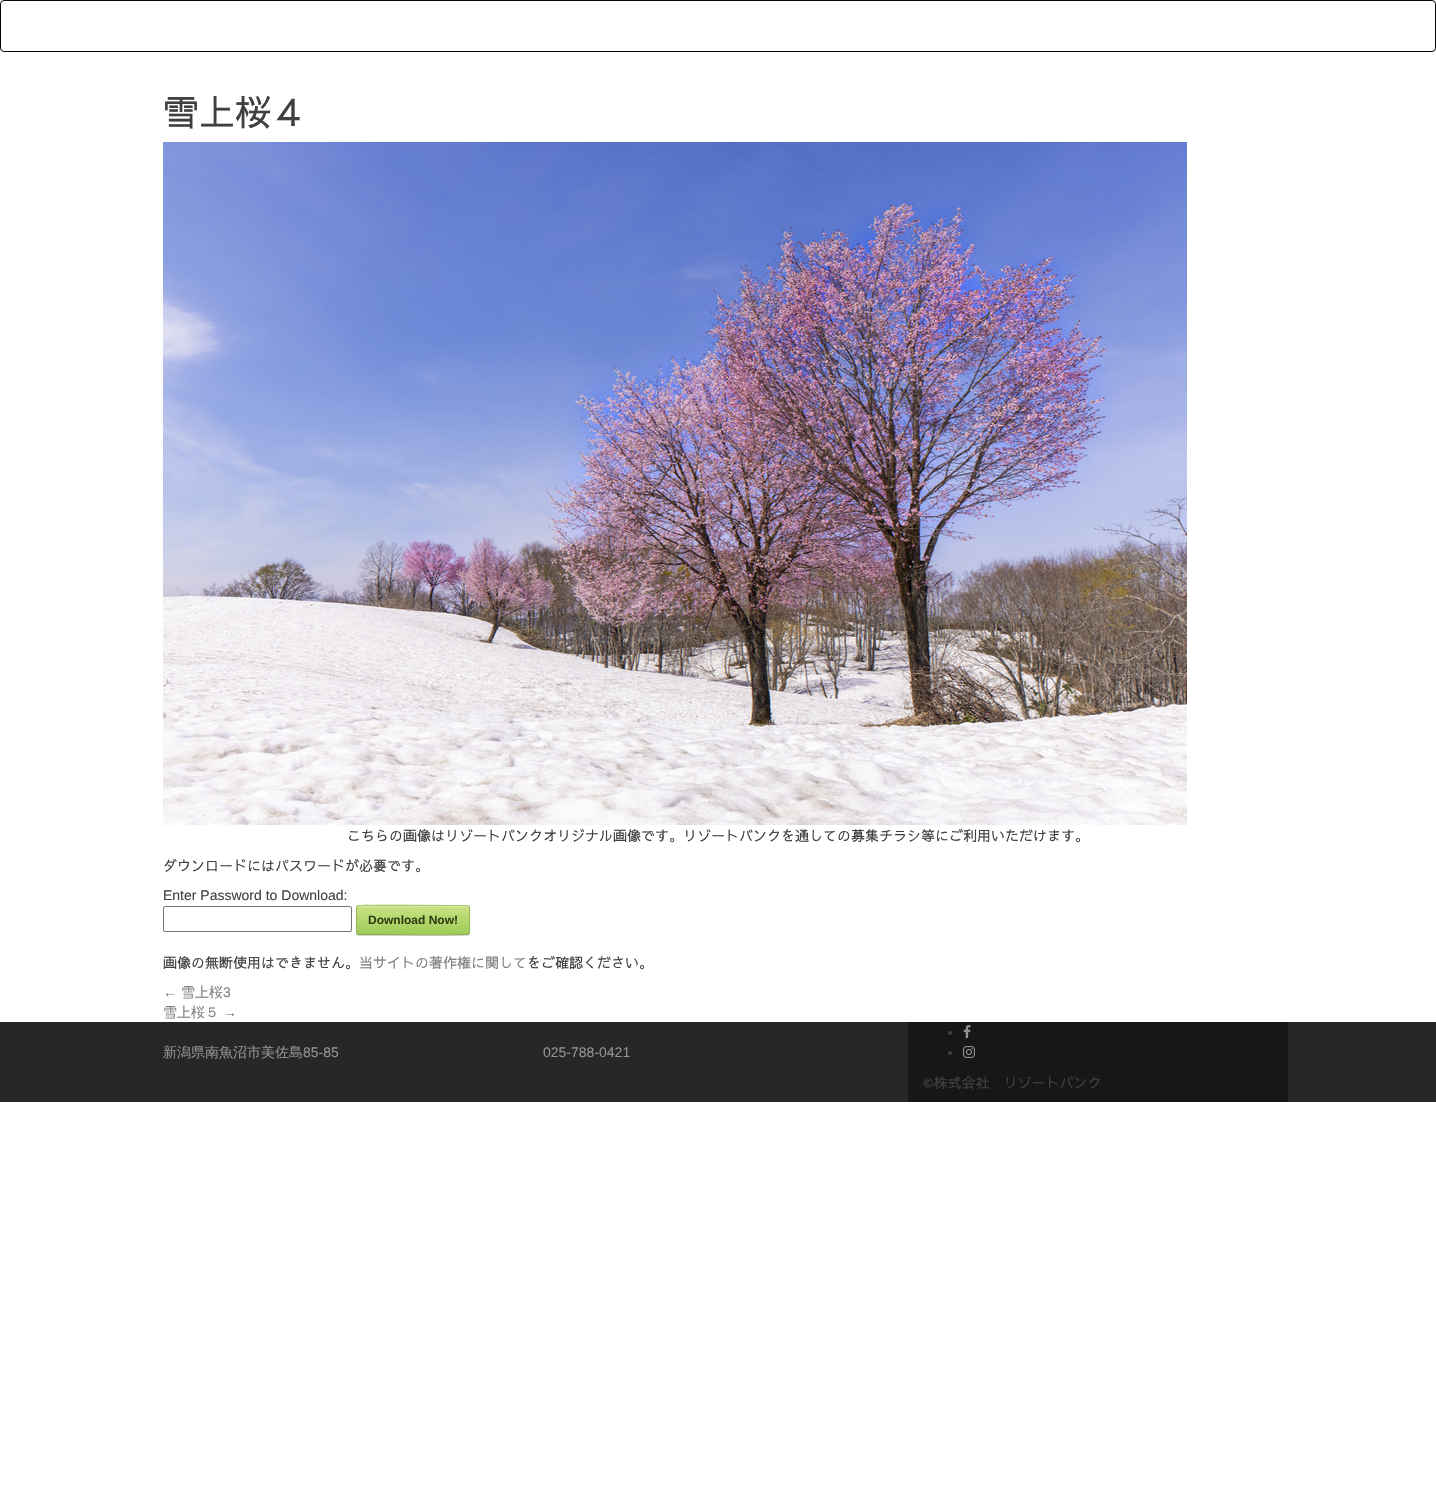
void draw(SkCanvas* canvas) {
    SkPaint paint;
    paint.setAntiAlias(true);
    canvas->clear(0xFFFFFFFF);
    paint.setStyle(SkPaint::kStroke_Style);
    paint.setStrokeWidth(1);
    paint.setColor(0xFF080808);
    canvas->drawRoundRect(SkRect::MakeXYWH(0.5f, 0.5f, 1435, 51), 3.5f, 3.5f, paint);
    SkFont font1(fontMgr->matchFamilyStyle("Sawarabi Gothic", SkFontStyle::Normal()), 36);
    font1.setSubpixel(true);
    paint.setStyle(SkPaint::kFill_Style);
    paint.setColor(0xFF404040);
    canvas->drawString("雪上桜４", 163, 126, font1, paint);
    canvas->drawImageRect(SkImages::DeferredFromEncodedData(SkData::MakeFromFileName("img1.png")), SkRect::MakeXYWH(163, 142, 1024, 683), SkSamplingOptions());
    SkFont font2(fontMgr->matchFamilyStyle("Sawarabi Gothic", SkFontStyle::Normal()), 14);
    font2.setSubpixel(true);
    canvas->drawString("こちらの画像はリゾートバンクオリジナル画像です。リゾートバンクを通しての募集チラシ等にご利用いただけます。", 347, 841, font2, paint);
    canvas->drawString("ダウンロードにはパスワードが必要です。", 163, 871, font2, paint);
    SkFont font3(fontMgr->matchFamilyStyle("Liberation Sans", SkFontStyle::Normal()), 14);
    font3.setSubpixel(true);
    canvas->drawString("Enter Password to Download:", 163, 900, font3, paint);
    paint.setStyle(SkPaint::kStroke_Style);
    paint.setColor(0xFF767676);
    canvas->drawRoundRect(SkRect::MakeXYWH(163.5f, 906.5f, 188, 25), 1.5f, 1.5f, paint);
    paint.setStyle(SkPaint::kFill_Style);
    paint.setColor(0xFFD3D3D3);
    paint.setMaskFilter(SkMaskFilter::MakeBlur(kNormal_SkBlurStyle, 0.5f));
    canvas->drawRoundRect(SkRect::MakeXYWH(356, 906, 114, 30), 3, 3, paint);
    paint.setMaskFilter(nullptr);
    canvas->save();
    canvas->clipPath(SkPathBuilder().moveTo(359, 905).lineTo(467, 905).cubicTo(468.5f, 905, 470, 906.5f, 470, 908).lineTo(470, 932).cubicTo(470, 933.5f, 468.5f, 935, 467, 935).lineTo(359, 935).cubicTo(357.5f, 935, 356, 933.5f, 356, 932).lineTo(356, 908).cubicTo(356, 906.5f, 357.5f, 905, 359, 905).close().detach(), true);
    {
        const SkColor colors[] = {0xFFCAE285, 0xFF9FCB57};
        const float stops[] = {0, 1};
        const SkPoint ends[] = {{357, 878}, {357, 906}};
        paint.setShader(SkGradientShader::MakeLinear(ends, colors, stops, 2, SkTileMode::kClamp));
        paint.setAlpha(255);
    }
    canvas->drawRect(SkRect::MakeXYWH(356, 905, 114, 1), paint);
    {
        const SkColor colors[] = {0xFFCAE285, 0xFF9FCB57};
        const float stops[] = {0, 1};
        const SkPoint ends[] = {{357, 906}, {357, 934}};
        paint.setShader(SkGradientShader::MakeLinear(ends, colors, stops, 2, SkTileMode::kClamp));
        paint.setAlpha(255);
    }
    canvas->drawRect(SkRect::MakeXYWH(356, 906, 114, 28), paint);
    {
        const SkColor colors[] = {0xFFCAE285, 0xFF9FCB57};
        const float stops[] = {0, 1};
        const SkPoint ends[] = {{357, 934}, {357, 962}};
        paint.setShader(SkGradientShader::MakeLinear(ends, colors, stops, 2, SkTileMode::kClamp));
        paint.setAlpha(255);
    }
    canvas->drawRect(SkRect::MakeXYWH(356, 934, 114, 1), paint);
    canvas->restore();
    paint.setShader(nullptr);
    paint.setColor(0xFFD7E9A4);
    canvas->drawPath(SkPathBuilder().moveTo(359, 907).lineTo(467, 907).cubicTo(468, 907, 469, 908, 469, 909).cubicTo(469, 908, 469, 906, 467, 906).lineTo(377, 906).cubicTo(377, 906, 357, 901, 357, 909).cubicTo(357, 908, 358, 907, 359, 907).close().detach(), paint);
    paint.setStyle(SkPaint::kStroke_Style);
    paint.setColor(0xFFADC671);
    canvas->drawPath(SkPathBuilder().moveTo(357, 906).lineTo(357.5f, 906).cubicTo(359.5f, 904.5f, 440, 905.5f, 449, 905.5f).lineTo(467, 905.5f).lineTo(469, 906).detach(), paint);
    paint.setColor(0xFF98B65B);
    canvas->drawPath(SkPathBuilder().moveTo(469, 906).cubicTo(469, 906.5f, 469.5f, 907.5f, 469.5f, 908).lineTo(469.5f, 932).cubicTo(469.5f, 932.5f, 469, 933.5f, 469, 934).detach(), paint);
    paint.setColor(0xFF87AA4A);
    canvas->drawPath(SkPathBuilder().moveTo(469, 934).lineTo(468.5f, 934).cubicTo(466.5f, 935.5f, 386, 934.5f, 377, 934.5f).lineTo(359, 934.5f).lineTo(357, 934).detach(), paint);
    paint.setColor(0xFF98B65B);
    canvas->drawPath(SkPathBuilder().moveTo(357, 934).cubicTo(357, 933.5f, 356.5f, 932.5f, 356.5f, 932).lineTo(356.5f, 908).cubicTo(356.5f, 907.5f, 357, 906.5f, 357, 906).detach(), paint);
    SkFont font4(fontMgr->matchFamilyStyle("Liberation Sans", SkFontStyle::Bold()), 12);
    font4.setSubpixel(true);
    paint.setStyle(SkPaint::kFill_Style);
    paint.setColor(0xFF2F4014);
    canvas->drawString("Download Now!", 368, 924, font4, paint);
    paint.setColor(0xFF404040);
    canvas->drawString("画像の無断使用はできません。", 163, 968, font2, paint);
    paint.setColor(0xFF808080);
    canvas->drawString("当サイトの著作権に関して", 359, 968, font2, paint);
    paint.setColor(0xFF404040);
    canvas->drawString("をご確認ください。", 527, 968, font2, paint);
    paint.setColor(0xFF808080);
    canvas->drawString("←", 163, 997, font3, paint);
    SkFont font5(fontMgr->matchFamilyStyle("WenQuanYi Zen Hei", SkFontStyle(500, SkFontStyle::kNormal_Width, SkFontStyle::kUpright_Slant)), 14);
    font5.setSubpixel(true);
    canvas->drawString("雪上桜", 181, 997, font5, paint);
    canvas->drawString("3", 223, 997, font3, paint);
    canvas->drawString("雪上桜５", 163, 1017, font5, paint);
    canvas->drawString("→", 223, 1017, font3, paint);
    paint.setColor(0xFF272727);
    canvas->drawRect(SkRect::MakeXYWH(0, 1022, 1436, 80), paint);
    paint.setColor(0xFF939393);
    canvas->drawString("新潟県南魚沼市美佐島", 163, 1057, font5, paint);
    canvas->drawString("85-85", 303, 1057, font3, paint);
    canvas->drawString("025-788-0421", 543, 1057, font3, paint);
    paint.setColor(0xFF171717);
    canvas->drawRect(SkRect::MakeXYWH(908, 1022, 380, 80), paint);
    paint.setColor(0xFF404040);
    canvas->drawCircle(950, 1033, 2, paint);
    canvas->drawImageRect(SkImages::DeferredFromEncodedData(SkData::MakeFromFileName("img2.png")), SkRect::MakeXYWH(963, 1025, 8, 13), SkSamplingOptions());
    canvas->drawCircle(950, 1053, 2, paint);
    canvas->drawImageRect(SkImages::DeferredFromEncodedData(SkData::MakeFromFileName("img3.png")), SkRect::MakeXYWH(963, 1046, 12, 12), SkSamplingOptions());
    canvas->drawString("©株式会社　リゾートバンク", 923, 1088, font2, paint);
}
